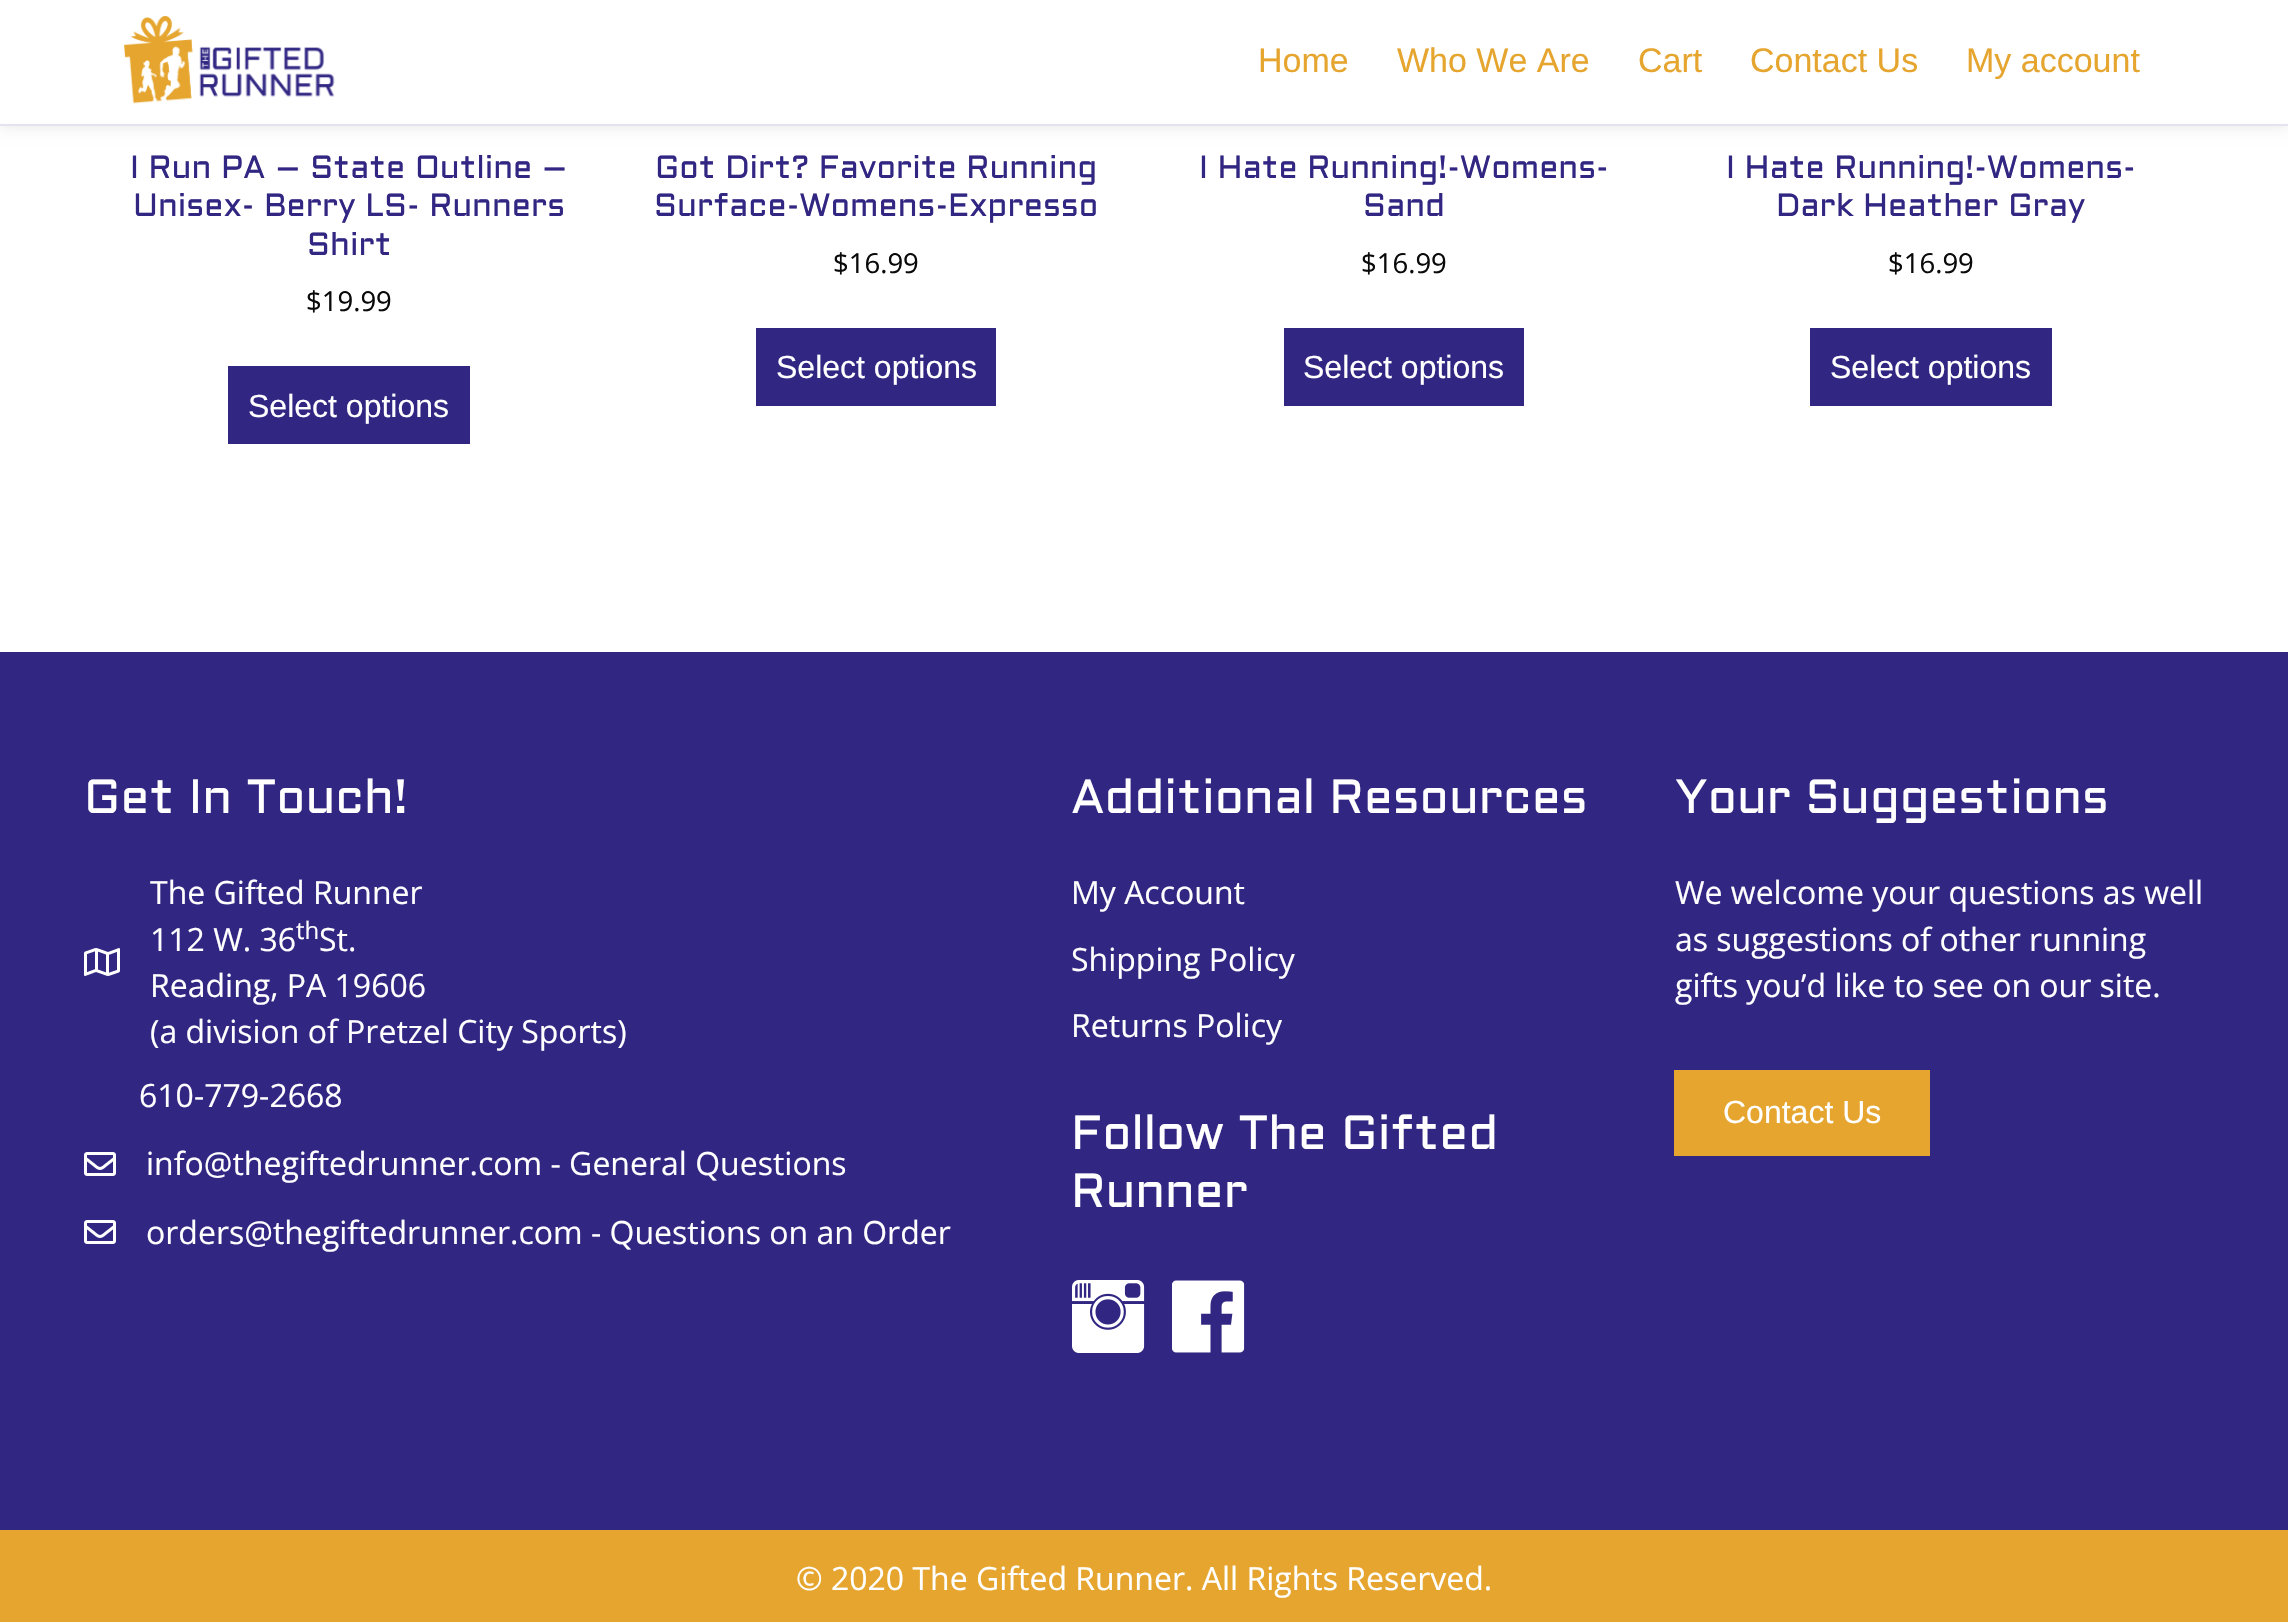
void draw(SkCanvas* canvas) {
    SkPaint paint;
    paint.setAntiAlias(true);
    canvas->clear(0xFFFFFFFF);
    paint.setColor(0x1A000000);
    paint.setMaskFilter(SkMaskFilter::MakeBlur(kNormal_SkBlurStyle, 7));
    canvas->drawRect(SkRect::MakeXYWH(0, 0, 2288, 126), paint);
    paint.setMaskFilter(nullptr);
    paint.setColor(0xFFFFFFFF);
    canvas->drawRect(SkRect::MakeXYWH(0, 0, 2288, 124), paint);
    paint.setColor(0xFFE4E3EF);
    canvas->drawRect(SkRect::MakeXYWH(0, 124, 2288, 2), paint);
    canvas->drawImageRect(SkImages::DeferredFromEncodedData(SkData::MakeFromFileName("img1.png")), SkRect::MakeXYWH(124, 16, 211, 88), SkSamplingOptions());
    SkFont font1(fontMgr->matchFamilyStyle("Liberation Sans", SkFontStyle::Normal()), 34);
    font1.setSubpixel(true);
    paint.setColor(0xFFE5A52E);
    canvas->drawString("Home", 1258, 72, font1, paint);
    canvas->drawString("Who We Are", 1397, 72, font1, paint);
    canvas->drawString("Cart", 1638, 72, font1, paint);
    canvas->drawString("Contact Us", 1750, 72, font1, paint);
    canvas->drawString("My account", 1966, 72, font1, paint);
    SkFont font2(fontMgr->matchFamilyStyle("Aldrich", SkFontStyle::Normal()), 32);
    font2.setSubpixel(true);
    paint.setColor(0xFF312783);
    canvas->drawString("I Run PA – State Outline –", 130, 178, font2, paint);
    canvas->drawString("Unisex- Berry LS- Runners", 133, 216, font2, paint);
    canvas->drawString("Shirt", 307, 255, font2, paint);
    SkFont font3(fontMgr->matchFamilyStyle("Open Sans", SkFontStyle::Normal()), 27.5f);
    font3.setSubpixel(true);
    paint.setColor(0xFF0A0A0A);
    canvas->drawString("$19.99", 306, 311, font3, paint);
    paint.setColor(0xFF312783);
    canvas->drawRect(SkRect::MakeXYWH(228, 366, 242, 78), paint);
    SkFont font4(fontMgr->matchFamilyStyle("Liberation Sans", SkFontStyle::Normal()), 32);
    font4.setSubpixel(true);
    paint.setColor(0xFFFFFFFF);
    canvas->drawString("Select options", 248, 417, font4, paint);
    paint.setColor(0xFF312783);
    canvas->drawString("Got Dirt? Favorite Running", 655, 178, font2, paint);
    canvas->drawString("Surface-Womens-Expresso", 654, 216, font2, paint);
    paint.setColor(0xFF0A0A0A);
    canvas->drawString("$16.99", 833, 273, font3, paint);
    paint.setColor(0xFF312783);
    canvas->drawRect(SkRect::MakeXYWH(756, 328, 240, 78), paint);
    paint.setColor(0xFFFFFFFF);
    canvas->drawString("Select options", 776, 378, font4, paint);
    paint.setColor(0xFF312783);
    canvas->drawString("I Hate Running!-Womens-", 1199, 178, font2, paint);
    canvas->drawString("Sand", 1363, 216, font2, paint);
    paint.setColor(0xFF0A0A0A);
    canvas->drawString("$16.99", 1361, 273, font3, paint);
    paint.setColor(0xFF312783);
    canvas->drawRect(SkRect::MakeXYWH(1284, 328, 240, 78), paint);
    paint.setColor(0xFFFFFFFF);
    canvas->drawString("Select options", 1303, 378, font4, paint);
    paint.setColor(0xFF312783);
    canvas->drawString("I Hate Running!-Womens-", 1726, 178, font2, paint);
    canvas->drawString("Dark Heather Gray", 1776, 216, font2, paint);
    paint.setColor(0xFF0A0A0A);
    canvas->drawString("$16.99", 1888, 273, font3, paint);
    paint.setColor(0xFF312783);
    canvas->drawRect(SkRect::MakeXYWH(1810, 328, 242, 78), paint);
    paint.setColor(0xFFFFFFFF);
    canvas->drawString("Select options", 1830, 378, font4, paint);
    paint.setColor(0xFF312783);
    canvas->drawRect(SkRect::MakeXYWH(0, 652, 2288, 878), paint);
    SkFont font5(fontMgr->matchFamilyStyle("Aldrich", SkFontStyle::Normal()), 48);
    font5.setSubpixel(true);
    paint.setColor(0xFFFFFFFF);
    canvas->drawString("Get In Touch!", 84, 813, font5, paint);
    canvas->drawImageRect(SkImages::DeferredFromEncodedData(SkData::MakeFromFileName("img2.png")), SkRect::MakeXYWH(84, 948, 36, 28), SkSamplingOptions());
    SkFont font6(fontMgr->matchFamilyStyle("Open Sans", SkFontStyle::Normal()), 32);
    font6.setSubpixel(true);
    canvas->drawString("The Gifted Runner", 150, 904, font6, paint);
    canvas->drawString("112 W. 36", 150, 951, font6, paint);
    SkFont font7(fontMgr->matchFamilyStyle("Open Sans", SkFontStyle::Normal()), 24);
    font7.setSubpixel(true);
    canvas->drawString("th", 296, 939, font7, paint);
    canvas->drawString("St.", 319, 951, font6, paint);
    canvas->drawString("Reading, PA 19606", 150, 997, font6, paint);
    canvas->drawString("(a division of Pretzel City Sports)", 150, 1043, font6, paint);
    canvas->drawString("610-779-2668", 139, 1107, font6, paint);
    canvas->drawImageRect(SkImages::DeferredFromEncodedData(SkData::MakeFromFileName("img3.png")), SkRect::MakeXYWH(84, 1152, 32, 24), SkSamplingOptions());
    canvas->drawString("info@thegiftedrunner.com - General Questions", 146, 1175, font6, paint);
    canvas->drawImageRect(SkImages::DeferredFromEncodedData(SkData::MakeFromFileName("img3.png")), SkRect::MakeXYWH(84, 1220, 32, 24), SkSamplingOptions());
    canvas->drawString("orders@thegiftedrunner.com - Questions on an Order", 146, 1244, font6, paint);
    canvas->drawString("Additional Resources", 1071, 813, font5, paint);
    canvas->drawString("My Account", 1071, 904, font6, paint);
    canvas->drawString("Shipping Policy", 1071, 971, font6, paint);
    canvas->drawString("Returns Policy", 1071, 1037, font6, paint);
    canvas->drawString("Follow The Gifted", 1071, 1149, font5, paint);
    canvas->drawString("Runner", 1071, 1207, font5, paint);
    canvas->drawImageRect(SkImages::DeferredFromEncodedData(SkData::MakeFromFileName("img4.png")), SkRect::MakeXYWH(1072, 1280, 73, 73), SkSamplingOptions());
    canvas->drawImageRect(SkImages::DeferredFromEncodedData(SkData::MakeFromFileName("img5.png")), SkRect::MakeXYWH(1172, 1280, 73, 73), SkSamplingOptions());
    canvas->drawString("Your Suggestions", 1675, 813, font5, paint);
    canvas->drawString("We welcome your questions as well", 1675, 904, font6, paint);
    canvas->drawString("as suggestions of other running", 1675, 951, font6, paint);
    canvas->drawString("gifts you’d like to see on our site.", 1675, 997, font6, paint);
    paint.setColor(0xFFE5A52E);
    canvas->drawRect(SkRect::MakeXYWH(1674, 1070, 256, 86), paint);
    paint.setColor(0xFFFFFFFF);
    canvas->drawString("Contact Us", 1723, 1123, font4, paint);
    paint.setColor(0xFFE5A52E);
    canvas->drawRect(SkRect::MakeXYWH(0, 1530, 2288, 92), paint);
    paint.setColor(0xFFFFFFFF);
    canvas->drawString("© 2020 The Gifted Runner. All Rights Reserved.", 796, 1590, font6, paint);
}
